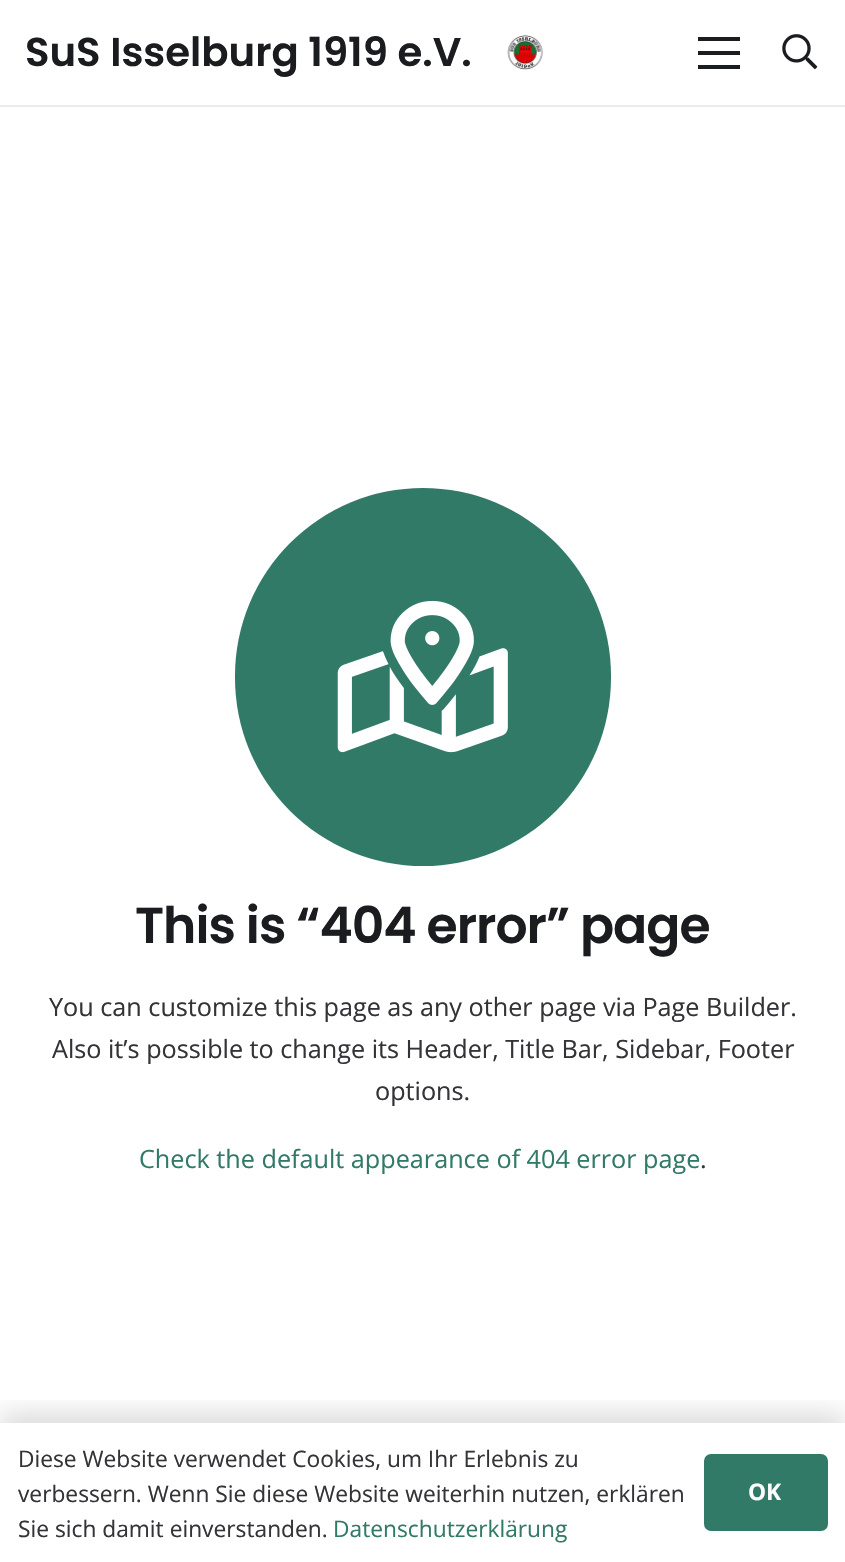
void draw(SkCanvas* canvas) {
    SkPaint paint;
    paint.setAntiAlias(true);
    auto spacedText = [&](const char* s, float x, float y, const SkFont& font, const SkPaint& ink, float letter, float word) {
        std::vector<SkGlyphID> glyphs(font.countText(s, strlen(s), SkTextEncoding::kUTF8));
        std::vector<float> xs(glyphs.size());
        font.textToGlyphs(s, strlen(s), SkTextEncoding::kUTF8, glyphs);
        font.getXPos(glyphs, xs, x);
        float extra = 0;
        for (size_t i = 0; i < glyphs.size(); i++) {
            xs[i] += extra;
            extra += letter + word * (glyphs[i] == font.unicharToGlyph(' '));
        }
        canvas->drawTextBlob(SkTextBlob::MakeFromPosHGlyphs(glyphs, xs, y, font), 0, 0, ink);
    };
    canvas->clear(0xFFFFFFFF);
    paint.setColor(0xFFEBEBEB);
    canvas->drawRect(SkRect::MakeXYWH(0, 105, 845, 2), paint);
    SkFont font1(fontMgr->matchFamilyStyle("Poppins", SkFontStyle(600, SkFontStyle::kNormal_Width, SkFontStyle::kUpright_Slant)), 40.25f);
    font1.setSubpixel(true);
    paint.setColor(0xFF1A1C1F);
    canvas->drawString("SuS Isselburg 1919 e.V.", 25, 66, font1, paint);
    canvas->drawImageRect(SkImages::DeferredFromEncodedData(SkData::MakeFromFileName("img1.png")), SkRect::MakeXYWH(507, 35, 36, 35), SkSamplingOptions());
    canvas->drawRect(SkRect::MakeXYWH(698, 51, 42, 4), paint);
    canvas->drawRect(SkRect::MakeXYWH(698, 37, 42, 4), paint);
    canvas->drawRect(SkRect::MakeXYWH(698, 65, 42, 4), paint);
    canvas->drawImageRect(SkImages::DeferredFromEncodedData(SkData::MakeFromFileName("img2.png")), SkRect::MakeXYWH(782, 34, 36, 36), SkSamplingOptions());
    paint.setColor(0xFF327A68);
    canvas->drawRoundRect(SkRect::MakeXYWH(235, 488, 376, 378), 188, 188, paint);
    canvas->drawImageRect(SkImages::DeferredFromEncodedData(SkData::MakeFromFileName("img3.png")), SkRect::MakeXYWH(337, 600, 171, 153), SkSamplingOptions());
    SkFont font2(fontMgr->matchFamilyStyle("Poppins", SkFontStyle(600, SkFontStyle::kNormal_Width, SkFontStyle::kUpright_Slant)), 50.4f);
    font2.setSubpixel(true);
    paint.setColor(0xFF1A1C1F);
    spacedText("This is “404 error” page", 135, 943, font2, paint, -1, 0);
    SkFont font3(fontMgr->matchFamilyStyle("Open Sans", SkFontStyle::Normal()), 25.2f);
    font3.setSubpixel(true);
    paint.setColor(0xFF343438);
    canvas->drawString("You can customize this page as any other page via Page Builder.", 49, 1016, font3, paint);
    canvas->drawString("Also it’s possible to change its Header, Title Bar, Sidebar, Footer", 52, 1058, font3, paint);
    canvas->drawString("options.", 375, 1100, font3, paint);
    paint.setColor(0xFF327A68);
    canvas->drawString("Check the default appearance of 404 error page", 139, 1168, font3, paint);
    paint.setColor(0xFF343438);
    canvas->drawString(".", 700, 1168, font3, paint);
    canvas->save();
    canvas->clipRect(SkRect::MakeXYWH(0, 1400, 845, 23));
    paint.setColor(0x26000000);
    paint.setMaskFilter(SkMaskFilter::MakeBlur(kNormal_SkBlurStyle, 13));
    canvas->drawRect(SkRect::MakeXYWH(0, 1414, 845, 140), paint);
    paint.setMaskFilter(nullptr);
    canvas->restore();
    SkFont font4(fontMgr->matchFamilyStyle("Open Sans", SkFontStyle::Normal()), 22.75f);
    font4.setSubpixel(true);
    paint.setColor(0xFF343438);
    canvas->drawString("Diese Website verwendet Cookies, um Ihr Erlebnis zu", 18, 1467, font4, paint);
    canvas->drawString("verbessern. Wenn Sie diese Website weiterhin nutzen, erklären", 18, 1502, font4, paint);
    canvas->drawString("Sie sich damit einverstanden.", 18, 1537, font4, paint);
    paint.setColor(0xFF327A68);
    canvas->drawString("Datenschutzerklärung", 333, 1537, font4, paint);
    canvas->drawRoundRect(SkRect::MakeXYWH(704, 1454, 124, 77), 7, 7, paint);
    SkFont font5(fontMgr->matchFamilyStyle("Open Sans", SkFontStyle::Bold()), 22.75f);
    font5.setSubpixel(true);
    paint.setColor(0xFFFFFFFF);
    canvas->drawString("OK", 748, 1500, font5, paint);
}
